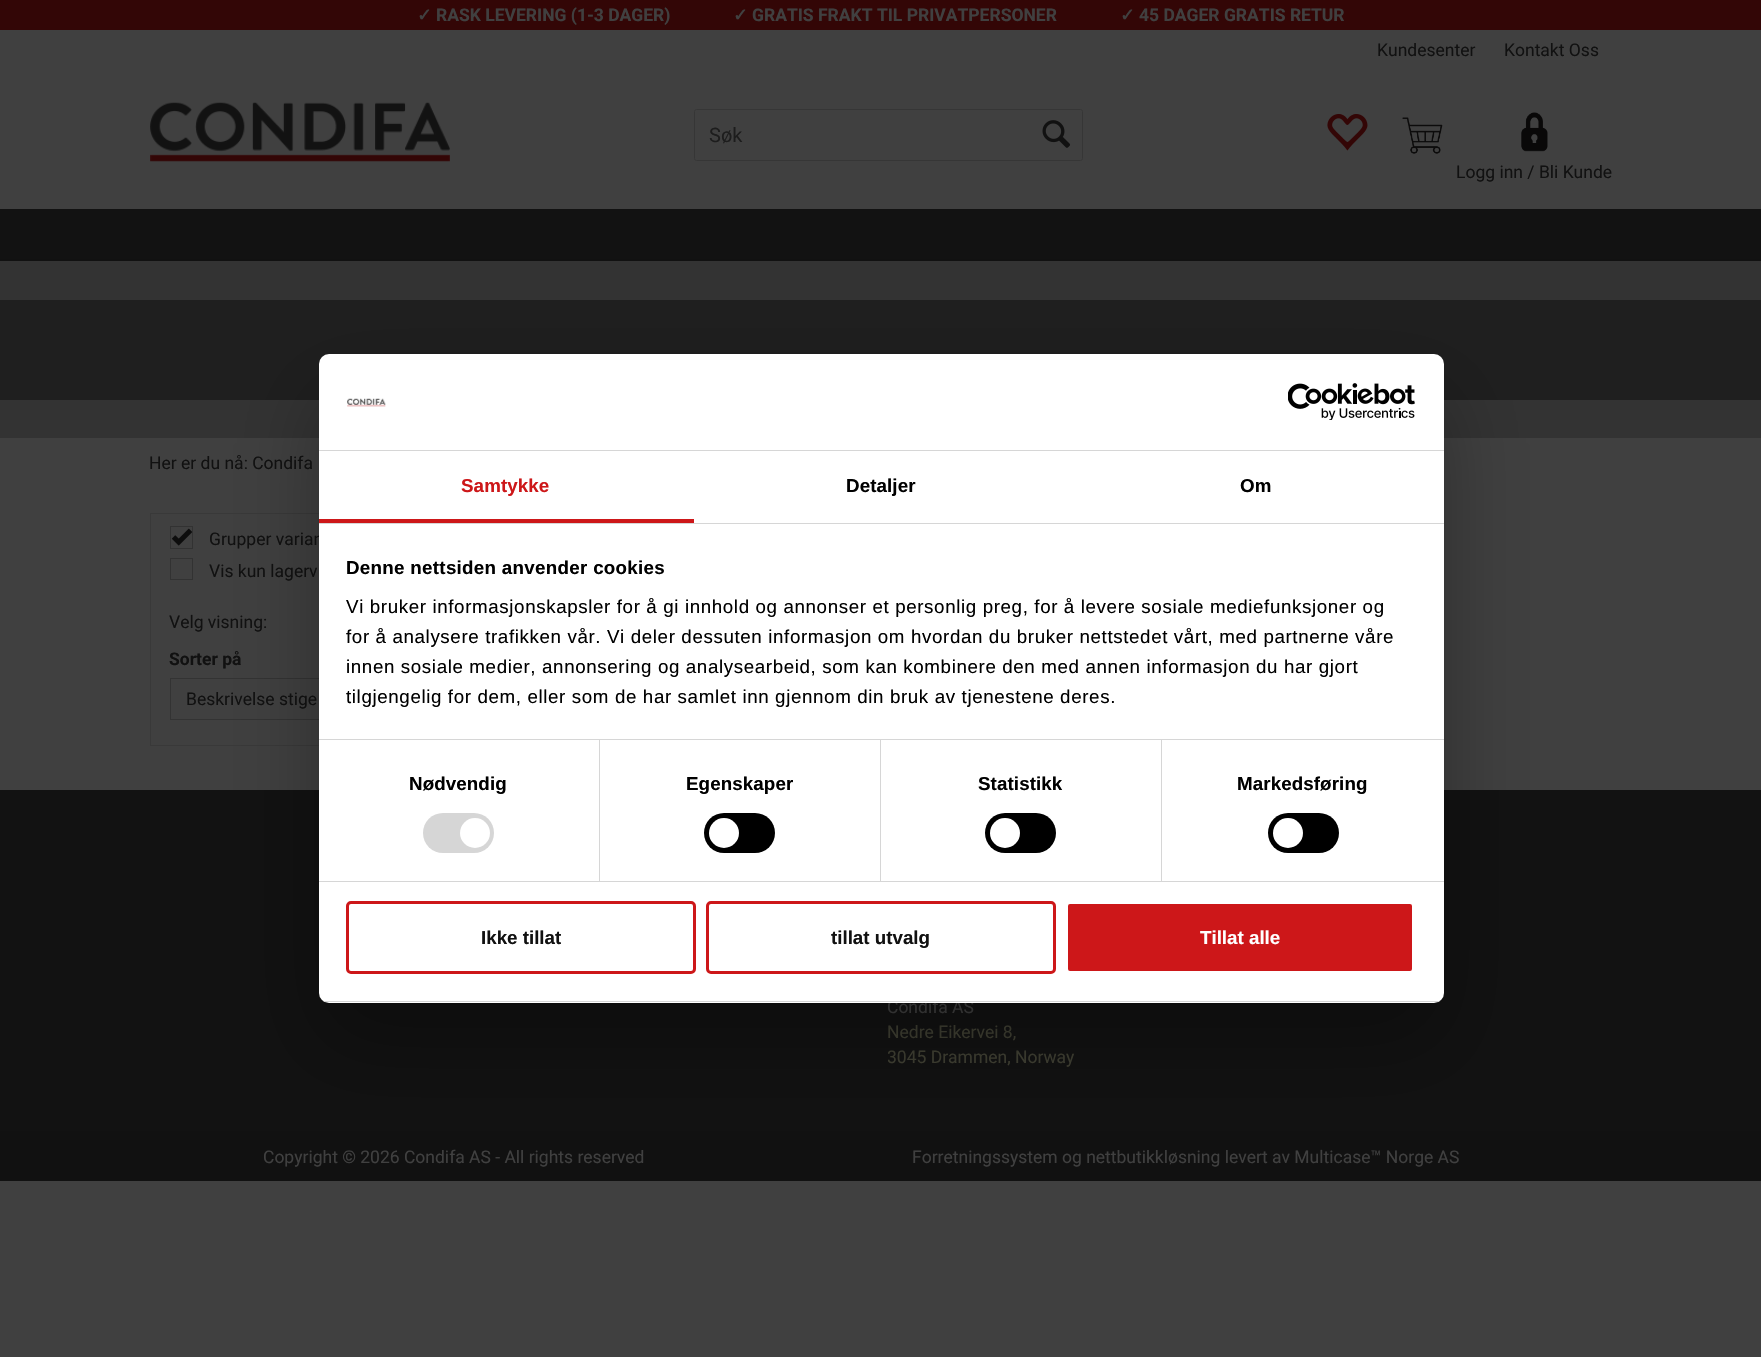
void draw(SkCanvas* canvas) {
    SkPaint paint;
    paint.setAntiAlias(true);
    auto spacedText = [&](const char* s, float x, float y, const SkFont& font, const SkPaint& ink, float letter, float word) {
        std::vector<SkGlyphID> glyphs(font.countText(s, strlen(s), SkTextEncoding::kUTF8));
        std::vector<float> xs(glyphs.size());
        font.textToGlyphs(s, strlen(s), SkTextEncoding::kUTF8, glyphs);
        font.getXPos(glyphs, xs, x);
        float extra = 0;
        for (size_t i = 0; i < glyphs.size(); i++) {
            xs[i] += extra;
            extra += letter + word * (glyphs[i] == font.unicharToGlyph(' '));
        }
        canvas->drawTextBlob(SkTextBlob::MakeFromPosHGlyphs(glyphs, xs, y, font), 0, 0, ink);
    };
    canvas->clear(0xFF404040);
    paint.setColor(0xFF330606);
    canvas->drawRect(SkRect::MakeXYWH(0, 0, 1761, 30), paint);
    SkFont font1(fontMgr->matchFamilyStyle("DejaVu Sans", SkFontStyle::Bold()), 17.5f);
    font1.setSubpixel(true);
    paint.setColor(0xFF404040);
    canvas->drawString("✓", 417, 21, font1, paint);
    SkFont font2(fontMgr->matchFamilyStyle("Roboto", SkFontStyle::Bold()), 17.5f);
    font2.setSubpixel(true);
    canvas->drawString("RASK LEVERING (1-3 DAGER)", 436, 21, font2, paint);
    canvas->drawString("✓", 733, 21, font1, paint);
    canvas->drawString("GRATIS FRAKT TIL PRIVATPERSONER", 752, 21, font2, paint);
    canvas->drawString("✓", 1120, 21, font1, paint);
    canvas->drawString("45 DAGER GRATIS RETUR", 1139, 21, font2, paint);
    SkFont font3(fontMgr->matchFamilyStyle("Roboto", SkFontStyle::Normal()), 17.5f);
    font3.setSubpixel(true);
    paint.setColor(0xFF111111);
    canvas->drawString("Kundesenter", 1377, 56, font3, paint);
    canvas->drawString("Kontakt Oss", 1504, 56, font3, paint);
    canvas->drawImageRect(SkImages::DeferredFromEncodedData(SkData::MakeFromFileName("img1.png")), SkRect::MakeXYWH(150, 102, 300, 60), SkSamplingOptions());
    paint.setStyle(SkPaint::kStroke_Style);
    paint.setStrokeWidth(1);
    paint.setColor(0xFF363636);
    canvas->drawRoundRect(SkRect::MakeXYWH(694.5f, 109.5f, 388, 51), 2, 2, paint);
    SkFont font4(fontMgr->matchFamilyStyle("Roboto", SkFontStyle::Normal()), 20);
    font4.setSubpixel(true);
    paint.setStyle(SkPaint::kFill_Style);
    paint.setColor(0xFF1D1D1D);
    canvas->drawString("Søk", 709, 142, font4, paint);
    canvas->drawImageRect(SkImages::DeferredFromEncodedData(SkData::MakeFromFileName("img2.png")), SkRect::MakeXYWH(1042, 120, 29, 28), SkSamplingOptions());
    canvas->drawImageRect(SkImages::DeferredFromEncodedData(SkData::MakeFromFileName("img3.png")), SkRect::MakeXYWH(1327, 114, 41, 37), SkSamplingOptions());
    canvas->drawImageRect(SkImages::DeferredFromEncodedData(SkData::MakeFromFileName("img4.png")), SkRect::MakeXYWH(1402, 117, 41, 37), SkSamplingOptions());
    canvas->drawImageRect(SkImages::DeferredFromEncodedData(SkData::MakeFromFileName("img5.png")), SkRect::MakeXYWH(1521, 112, 27, 40), SkSamplingOptions());
    paint.setColor(0xFF111111);
    canvas->drawString("Logg inn / Bli Kunde", 1456, 178, font3, paint);
    paint.setColor(0xFF121212);
    canvas->drawRect(SkRect::MakeXYWH(0, 209, 1761, 50), paint);
    paint.setColor(0xFF111111);
    canvas->drawRect(SkRect::MakeXYWH(0, 259, 1761, 2), paint);
    paint.setColor(0xFF333333);
    canvas->drawRect(SkRect::MakeXYWH(0, 261, 1761, 177), paint);
    paint.setColor(0xFF1F1F1F);
    canvas->drawRect(SkRect::MakeXYWH(0, 300, 1761, 100), paint);
    paint.setColor(0xFF111111);
    canvas->drawString("Her er du nå: Condifa", 149, 469, font3, paint);
    paint.setStyle(SkPaint::kStroke_Style);
    paint.setColor(0xFF393939);
    canvas->drawRect(SkRect::MakeXYWH(150.5f, 513.5f, 339, 232), paint);
    paint.setColor(0xFF323232);
    canvas->drawRect(SkRect::MakeXYWH(170.5f, 526.5f, 22, 22), paint);
    canvas->drawImageRect(SkImages::DeferredFromEncodedData(SkData::MakeFromFileName("img6.png")), SkRect::MakeXYWH(171, 528, 22, 18), SkSamplingOptions());
    paint.setStyle(SkPaint::kFill_Style);
    paint.setColor(0xFF111111);
    canvas->drawString("Grupper varian", 209, 545, font3, paint);
    paint.setStyle(SkPaint::kStroke_Style);
    paint.setColor(0xFF323232);
    canvas->drawRect(SkRect::MakeXYWH(170.5f, 558.5f, 22, 21), paint);
    paint.setStyle(SkPaint::kFill_Style);
    paint.setColor(0xFF111111);
    canvas->drawString("Vis kun lagerv", 209, 577, font3, paint);
    canvas->drawString("Velg visning:", 169, 628, font3, paint);
    canvas->drawString("Sorter på", 169, 665, font2, paint);
    paint.setStyle(SkPaint::kStroke_Style);
    paint.setColor(0xFF333333);
    canvas->drawRect(SkRect::MakeXYWH(170.5f, 678.5f, 215, 41), paint);
    paint.setStyle(SkPaint::kFill_Style);
    paint.setColor(0xFF111111);
    canvas->drawString("Beskrivelse stige", 186, 705, font3, paint);
    paint.setColor(0xFF121212);
    canvas->drawRect(SkRect::MakeXYWH(0, 790, 1761, 341), paint);
    paint.setColor(0xFF404040);
    canvas->drawString("Condifa AS", 887, 1013, font3, paint);
    paint.setColor(0xFF404033);
    canvas->drawString("Nedre Eikervei 8,", 887, 1038, font3, paint);
    canvas->save();
    canvas->clipRect(SkRect::MakeXYWH(888, 790, 725, 329));
    canvas->drawString("3045 Drammen, Norway", 887, 1063, font3, paint);
    canvas->restore();
    paint.setColor(0xFF111111);
    canvas->drawRect(SkRect::MakeXYWH(0, 1131, 1761, 50), paint);
    paint.setColor(0xFF404040);
    canvas->drawString("Copyright © 2026 Condifa AS - All rights reserved", 263, 1163, font3, paint);
    canvas->drawString("Forretningssystem og nettbutikkløsning levert av Multicase™ Norge AS", 912, 1163, font3, paint);
    paint.setColor(0x4D000000);
    paint.setMaskFilter(SkMaskFilter::MakeBlur(kNormal_SkBlurStyle, 42.5f));
    canvas->drawRoundRect(SkRect::MakeXYWH(319, 394, 1125, 649), 10, 10, paint);
    paint.setMaskFilter(nullptr);
    paint.setColor(0xFFFFFFFF);
    canvas->drawRoundRect(SkRect::MakeXYWH(319, 354, 1125, 649), 10, 10, paint);
    paint.setColor(0xFFD6D6D6);
    canvas->drawRect(SkRect::MakeXYWH(319, 450, 1125, 1), paint);
    canvas->drawImageRect(SkImages::DeferredFromEncodedData(SkData::MakeFromFileName("img7.png")), SkRect::MakeXYWH(347, 398, 39, 9), SkSamplingOptions());
    canvas->drawImageRect(SkImages::DeferredFromEncodedData(SkData::MakeFromFileName("img8.png")), SkRect::MakeXYWH(1288, 383, 127, 37), SkSamplingOptions());
    canvas->drawRect(SkRect::MakeXYWH(319, 523, 1125, 1), paint);
    paint.setColor(0xFFCD1719);
    canvas->drawRect(SkRect::MakeXYWH(319, 519, 375, 4), paint);
    SkFont font5(fontMgr->matchFamilyStyle("Liberation Sans", SkFontStyle::Bold()), 18.75f);
    font5.setSubpixel(true);
    spacedText("Samtykke", 461, 492, font5, paint, 0.1f, 0);
    paint.setColor(0xFF000000);
    spacedText("Detaljer", 846, 492, font5, paint, 0.1f, 0);
    spacedText("Om", 1240, 492, font5, paint, 0.1f, 0);
    paint.setColor(0xFFD6D6D6);
    canvas->drawRect(SkRect::MakeXYWH(319, 739, 1125, 1), paint);
    paint.setColor(0xFF000000);
    spacedText("Denne nettsiden anvender cookies", 346, 574, font5, paint, 0.3f, 0);
    SkFont font6(fontMgr->matchFamilyStyle("Liberation Sans", SkFontStyle::Normal()), 18.75f);
    font6.setSubpixel(true);
    spacedText("Vi bruker informasjonskapsler for å gi innhold og annonser et personlig preg, for å levere sosiale mediefunksjoner og", 346, 613, font6, paint, 0.62f, 0);
    spacedText("for å analysere trafikken vår. Vi deler dessuten informasjon om hvordan du bruker nettstedet vårt, med partnerne våre", 346, 643, font6, paint, 0.62f, 0);
    spacedText("innen sosiale medier, annonsering og analysearbeid, som kan kombinere den med annen informasjon du har gjort", 346, 673, font6, paint, 0.62f, 0);
    spacedText("tilgjengelig for dem, eller som de har samlet inn gjennom din bruk av tjenestene deres.", 346, 703, font6, paint, 0.62f, 0);
    paint.setColor(0xFFD6D6D6);
    canvas->drawRect(SkRect::MakeXYWH(319, 881, 1125, 1), paint);
    canvas->drawRect(SkRect::MakeXYWH(599, 740, 1, 141), paint);
    paint.setColor(0xFF000000);
    spacedText("Nødvendig", 409, 790, font5, paint, 0.1f, 0);
    paint.setColor(0xFFD6D6D6);
    canvas->drawRoundRect(SkRect::MakeXYWH(423, 813, 71, 40), 20, 20, paint);
    paint.setColor(0xFFFFFFFF);
    canvas->drawCircle(475, 833, 15, paint);
    paint.setColor(0xFFD6D6D6);
    canvas->drawRect(SkRect::MakeXYWH(880, 740, 1, 141), paint);
    paint.setColor(0xFF000000);
    spacedText("Egenskaper", 686, 790, font5, paint, 0.1f, 0);
    canvas->drawRoundRect(SkRect::MakeXYWH(704, 813, 71, 40), 20, 20, paint);
    paint.setColor(0xFFFFFFFF);
    canvas->drawCircle(724, 833, 15, paint);
    paint.setColor(0xFFD6D6D6);
    canvas->drawRect(SkRect::MakeXYWH(1161, 740, 1, 141), paint);
    paint.setColor(0xFF000000);
    spacedText("Statistikk", 978, 790, font5, paint, 0.1f, 0);
    canvas->drawRoundRect(SkRect::MakeXYWH(985, 813, 71, 40), 20, 20, paint);
    paint.setColor(0xFFFFFFFF);
    canvas->drawCircle(1005, 833, 15, paint);
    paint.setColor(0xFF000000);
    spacedText("Markedsføring", 1237, 790, font5, paint, 0.1f, 0);
    canvas->drawRoundRect(SkRect::MakeXYWH(1268, 813, 71, 40), 20, 20, paint);
    paint.setColor(0xFFFFFFFF);
    canvas->drawCircle(1288, 833, 15, paint);
    canvas->save();
    canvas->clipPath(SkPathBuilder().moveTo(329, 354).lineTo(1434, 354).cubicTo(1439.5f, 354, 1444, 358.5f, 1444, 364).lineTo(1444, 993).cubicTo(1444, 998.5f, 1439.5f, 1003, 1434, 1003).lineTo(329, 1003).cubicTo(323.5f, 1003, 319, 998.5f, 319, 993).lineTo(319, 364).cubicTo(319, 358.5f, 323.5f, 354, 329, 354).close().detach(), true);
    paint.setColor(0xFFD6D6D6);
    canvas->drawRect(SkRect::MakeXYWH(319, 1001, 1125, 1), paint);
    canvas->restore();
    paint.setStyle(SkPaint::kStroke_Style);
    paint.setStrokeWidth(3);
    paint.setColor(0xFFCD1719);
    canvas->drawRoundRect(SkRect::MakeXYWH(347.5f, 902.5f, 347, 70), 3.5f, 3.5f, paint);
    paint.setStyle(SkPaint::kFill_Style);
    paint.setColor(0xFF111111);
    canvas->drawString("Ikke tillat", 481, 944, font5, paint);
    paint.setStyle(SkPaint::kStroke_Style);
    paint.setColor(0xFFCD1719);
    canvas->drawRoundRect(SkRect::MakeXYWH(707.5f, 902.5f, 347, 70), 3.5f, 3.5f, paint);
    paint.setStyle(SkPaint::kFill_Style);
    paint.setColor(0xFF111111);
    canvas->drawString("tillat utvalg", 831, 944, font5, paint);
    paint.setColor(0xFFCD1719);
    canvas->drawRoundRect(SkRect::MakeXYWH(1066.5f, 902.5f, 347, 70), 3.5f, 3.5f, paint);
    paint.setStyle(SkPaint::kStroke_Style);
    paint.setColor(0xFFFFFFFF);
    canvas->drawRoundRect(SkRect::MakeXYWH(1066.5f, 902.5f, 347, 70), 3.5f, 3.5f, paint);
    paint.setStyle(SkPaint::kFill_Style);
    canvas->drawString("Tillat alle", 1200, 944, font5, paint);
}
